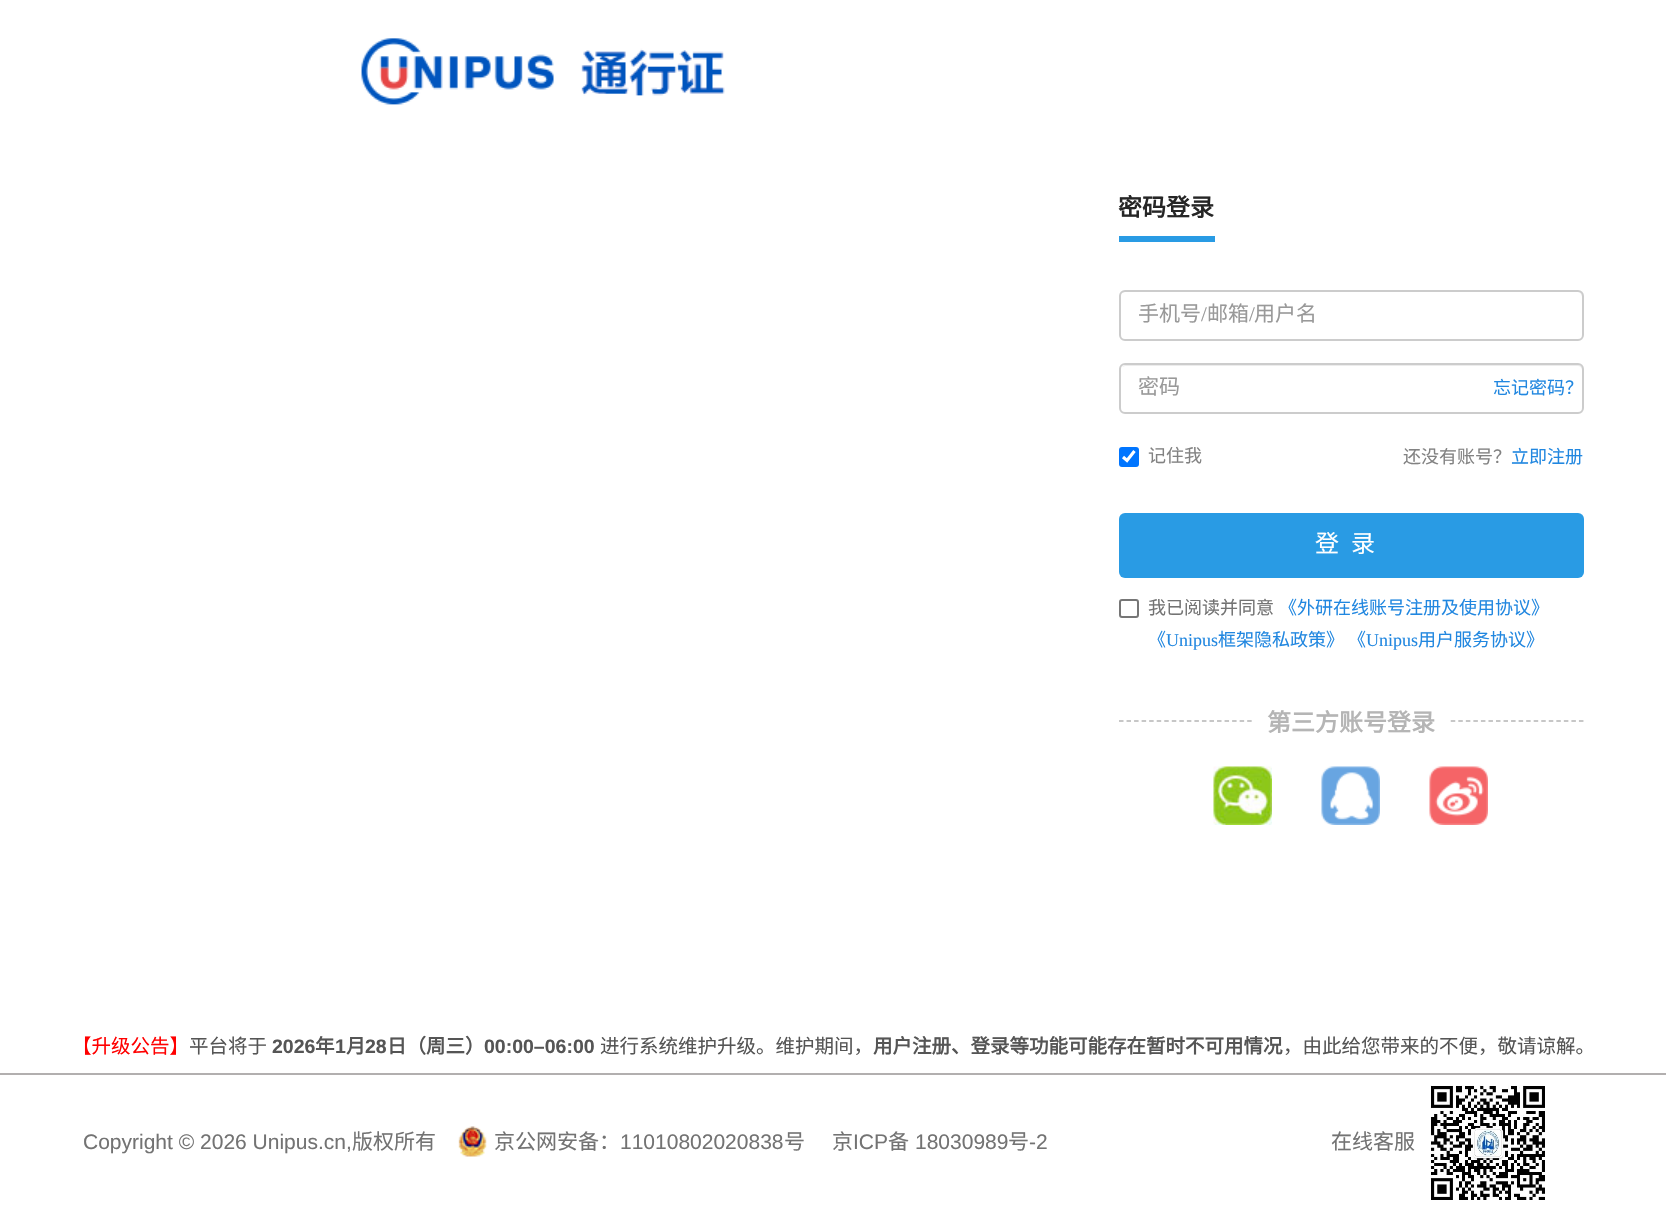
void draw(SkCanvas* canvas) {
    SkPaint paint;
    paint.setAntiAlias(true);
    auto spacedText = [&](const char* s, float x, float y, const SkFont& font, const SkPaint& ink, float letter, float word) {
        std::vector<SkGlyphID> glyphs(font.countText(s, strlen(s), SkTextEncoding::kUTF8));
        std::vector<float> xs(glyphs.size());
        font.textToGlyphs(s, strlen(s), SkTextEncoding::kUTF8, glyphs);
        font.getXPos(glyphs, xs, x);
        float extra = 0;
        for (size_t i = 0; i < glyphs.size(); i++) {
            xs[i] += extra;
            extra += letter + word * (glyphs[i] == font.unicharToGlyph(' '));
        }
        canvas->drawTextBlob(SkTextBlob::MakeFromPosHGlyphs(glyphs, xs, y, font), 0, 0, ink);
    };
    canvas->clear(0xFFFFFFFF);
    canvas->drawImageRect(SkImages::DeferredFromEncodedData(SkData::MakeFromFileName("img1.png")), SkRect::MakeXYWH(361, 38, 364, 67), SkSamplingOptions());
    paint.setColor(0xFF299BE4);
    canvas->drawRect(SkRect::MakeXYWH(1119, 236, 96, 6), paint);
    SkFont font1(fontMgr->matchFamilyStyle("Noto Sans CJK SC", SkFontStyle::Bold()), 24);
    font1.setSubpixel(true);
    paint.setColor(0xFF262626);
    canvas->drawString("密码登录", 1118, 216, font1, paint);
    paint.setColor(0xFFECECEC);
    canvas->drawPath(SkPathBuilder().moveTo(1125, 292).lineTo(1578, 292).cubicTo(1580, 292, 1582, 295, 1582, 297).lineTo(1582, 337).cubicTo(1583, 336, 1583, 335, 1583, 334).lineTo(1583, 296).cubicTo(1583, 293, 1581, 291, 1578, 291).lineTo(1126, 291).cubicTo(1124, 291, 1122, 292, 1121, 294).cubicTo(1122, 293, 1124, 292, 1125, 292).close().detach(), paint);
    paint.setStyle(SkPaint::kStroke_Style);
    paint.setStrokeWidth(2);
    paint.setColor(0xFFCCCCCC);
    canvas->drawRoundRect(SkRect::MakeXYWH(1120, 291, 463, 49), 5, 5, paint);
    SkFont font2(fontMgr->matchFamilyStyle("Noto Sans CJK SC", SkFontStyle::Normal()), 21);
    font2.setSubpixel(true);
    paint.setStyle(SkPaint::kFill_Style);
    paint.setColor(0xFF999999);
    canvas->drawString("手机号", 1138, 321, font2, paint);
    SkFont font3(fontMgr->matchFamilyStyle("Liberation Serif", SkFontStyle::Normal()), 21);
    font3.setSubpixel(true);
    canvas->drawString("/", 1201, 321, font3, paint);
    canvas->drawString("邮箱", 1207, 321, font2, paint);
    canvas->drawString("/", 1249, 321, font3, paint);
    canvas->drawString("用户名", 1254, 321, font2, paint);
    paint.setColor(0xFFECECEC);
    canvas->drawPath(SkPathBuilder().moveTo(1125, 366).lineTo(1578, 366).cubicTo(1580, 366, 1582, 368, 1582, 370).lineTo(1582, 411).cubicTo(1583, 410, 1583, 409, 1583, 408).lineTo(1583, 370).cubicTo(1583, 367, 1581, 365, 1578, 365).lineTo(1126, 365).cubicTo(1124, 365, 1123, 366, 1122, 367).close().detach(), paint);
    paint.setStyle(SkPaint::kStroke_Style);
    paint.setColor(0xFFCCCCCC);
    canvas->drawRoundRect(SkRect::MakeXYWH(1120, 364, 463, 49), 5, 5, paint);
    paint.setStyle(SkPaint::kFill_Style);
    paint.setColor(0xFF999999);
    canvas->drawString("密码", 1138, 394, font2, paint);
    SkFont font4(fontMgr->matchFamilyStyle("Noto Sans CJK SC", SkFontStyle::Normal()), 18);
    font4.setSubpixel(true);
    paint.setColor(0xFF2187E0);
    canvas->drawString("忘记密码？", 1493, 394, font4, paint);
    paint.setColor(0xFF0075FF);
    canvas->drawRoundRect(SkRect::MakeXYWH(1119, 447, 20, 20), 3, 3, paint);
    paint.setStyle(SkPaint::kStroke_Style);
    paint.setStrokeWidth(3.1f);
    paint.setColor(0xFFFFFFFF);
    canvas->drawPath(SkPathBuilder().moveTo(1123, 457).lineTo(1127, 460.5f).lineTo(1134.5f, 451).detach(), paint);
    paint.setStyle(SkPaint::kFill_Style);
    paint.setColor(0xFF828282);
    canvas->drawString("记住我", 1148, 462, font4, paint);
    canvas->drawString("还没有账号？", 1403, 463, font4, paint);
    paint.setColor(0xFF2187E0);
    canvas->drawString("立即注册", 1511, 463, font4, paint);
    paint.setColor(0xFF299BE4);
    canvas->drawRoundRect(SkRect::MakeXYWH(1119, 513, 465, 65), 6, 6, paint);
    SkFont font5(fontMgr->matchFamilyStyle("Noto Sans CJK SC", SkFontStyle::Normal()), 24);
    font5.setSubpixel(true);
    paint.setColor(0xFFFFFFFF);
    spacedText("登录", 1315, 552, font5, paint, 12, 0);
    paint.setStyle(SkPaint::kStroke_Style);
    paint.setStrokeWidth(2);
    paint.setColor(0xFF767676);
    canvas->drawRoundRect(SkRect::MakeXYWH(1120, 600, 18, 17), 2, 2, paint);
    paint.setStyle(SkPaint::kFill_Style);
    paint.setColor(0xFF737373);
    canvas->drawString("我已阅读并同意", 1148, 614, font4, paint);
    paint.setColor(0xFF2187E0);
    canvas->drawString("《外研在线账号注册及使用协议》", 1279, 614, font4, paint);
    canvas->drawString("《", 1148, 646, font4, paint);
    SkFont font6(fontMgr->matchFamilyStyle("Liberation Serif", SkFontStyle::Normal()), 18);
    font6.setSubpixel(true);
    canvas->drawString("Unipus", 1166, 646, font6, paint);
    canvas->drawString("框架隐私政策》 《", 1218, 646, font4, paint);
    canvas->drawString("Unipus", 1366, 646, font6, paint);
    canvas->drawString("用户服务协议》", 1418, 646, font4, paint);
    paint.setStyle(SkPaint::kStroke_Style);
    paint.setStrokeWidth(1.5f);
    paint.setColor(0xFFB5B5B5);
    paint.setPathEffect(SkDashPathEffect::Make({{4.5f, 3.04f}}, 0));
    canvas->drawPath(SkPathBuilder().moveTo(1119, 721).lineTo(1584, 721).detach(), paint);
    paint.setPathEffect(nullptr);
    paint.setStyle(SkPaint::kFill_Style);
    paint.setColor(0xFFFFFFFF);
    canvas->drawRect(SkRect::MakeXYWH(1254, 720, 194, 2), paint);
    paint.setColor(0xFFB5B5B5);
    canvas->drawString("第三方账号登录", 1267, 731, font1, paint);
    canvas->drawImageRect(SkImages::DeferredFromEncodedData(SkData::MakeFromFileName("img2.png")), SkRect::MakeXYWH(1213, 766, 59, 59), SkSamplingOptions());
    canvas->drawImageRect(SkImages::DeferredFromEncodedData(SkData::MakeFromFileName("img3.png")), SkRect::MakeXYWH(1321, 766, 59, 59), SkSamplingOptions());
    canvas->drawImageRect(SkImages::DeferredFromEncodedData(SkData::MakeFromFileName("img4.png")), SkRect::MakeXYWH(1429, 766, 59, 59), SkSamplingOptions());
    paint.setColor(0xFFB2AFAF);
    canvas->drawRect(SkRect::MakeXYWH(0, 1073, 1666, 2), paint);
    SkFont font7(fontMgr->matchFamilyStyle("Noto Sans CJK SC", SkFontStyle::Normal()), 19.5f);
    font7.setSubpixel(true);
    paint.setColor(0xFFFF0000);
    canvas->drawString("【升级公告】", 72, 1053, font7, paint);
    paint.setColor(0xFF555555);
    canvas->drawString("平台将于", 189, 1053, font7, paint);
    SkFont font8(fontMgr->matchFamilyStyle("Liberation Sans", SkFontStyle::Bold()), 19.5f);
    font8.setSubpixel(true);
    canvas->drawString("2026", 272, 1053, font8, paint);
    SkFont font9(fontMgr->matchFamilyStyle("Noto Sans CJK SC", SkFontStyle::Bold()), 19.5f);
    font9.setSubpixel(true);
    canvas->drawString("年", 315, 1053, font9, paint);
    canvas->drawString("1", 335, 1053, font8, paint);
    canvas->drawString("月", 346, 1053, font9, paint);
    canvas->drawString("28", 365, 1053, font8, paint);
    canvas->drawString("日（周三）", 387, 1053, font9, paint);
    canvas->drawString("00:00–06:00", 484, 1053, font8, paint);
    canvas->drawString("进行系统维护升级。维护期间，", 600, 1053, font7, paint);
    canvas->drawString("用户注册、登录等功能可能存在暂时不可用情况", 873, 1053, font9, paint);
    canvas->drawString("，由此给您带来的不便，敬请谅解。", 1283, 1053, font7, paint);
    SkFont font10(fontMgr->matchFamilyStyle("Liberation Sans", SkFontStyle::Normal()), 21);
    font10.setSubpixel(true);
    paint.setColor(0xFF737373);
    canvas->drawString("Copyright © 2026 Unipus.cn,", 83, 1149, font10, paint);
    canvas->drawString("版权所有", 352, 1149, font2, paint);
    canvas->drawImageRect(SkImages::DeferredFromEncodedData(SkData::MakeFromFileName("img5.png")), SkRect::MakeXYWH(458, 1126, 29, 31), SkSamplingOptions());
    canvas->drawString("京公网安备：", 494, 1149, font2, paint);
    canvas->drawString("11010802020838", 620, 1149, font10, paint);
    canvas->drawString("号", 784, 1149, font2, paint);
    canvas->drawString("京", 832, 1149, font2, paint);
    canvas->drawString("ICP", 853, 1149, font10, paint);
    canvas->drawString("备", 888, 1149, font2, paint);
    canvas->drawString("18030989", 915, 1149, font10, paint);
    canvas->drawString("号", 1008, 1149, font2, paint);
    canvas->drawString("-2", 1029, 1149, font10, paint);
    canvas->drawString("在线客服", 1331, 1149, font2, paint);
    canvas->drawImageRect(SkImages::DeferredFromEncodedData(SkData::MakeFromFileName("img6.png")), SkRect::MakeXYWH(1430, 1085, 115, 115), SkSamplingOptions());
}
